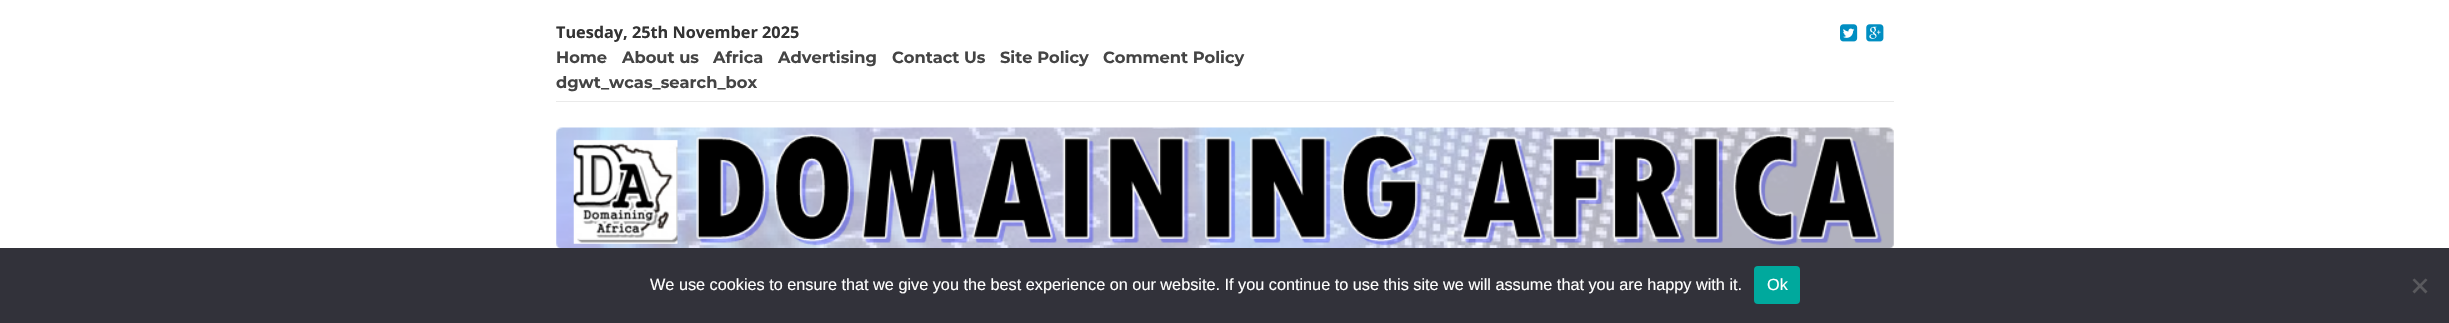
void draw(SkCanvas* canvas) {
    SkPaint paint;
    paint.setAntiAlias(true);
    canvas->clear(0xFFFFFFFF);
    paint.setColor(0xFFEAEAEA);
    canvas->drawRect(SkRect::MakeXYWH(556, 101, 1338, 1), paint);
    SkFont font1(fontMgr->matchFamilyStyle("Open Sans", SkFontStyle::Bold()), 16.25f);
    font1.setSubpixel(true);
    paint.setColor(0xFF333333);
    canvas->drawString("Tuesday, 25th November 2025", 556, 38, font1, paint);
    SkFont font2(fontMgr->matchFamilyStyle("Montserrat", SkFontStyle::Bold()), 16.25f);
    font2.setSubpixel(true);
    paint.setColor(0xFF444444);
    canvas->drawString("Home", 556, 63, font2, paint);
    canvas->drawString("About us", 622, 63, font2, paint);
    canvas->drawString("Africa", 713, 63, font2, paint);
    canvas->drawString("Advertising", 778, 63, font2, paint);
    canvas->drawString("Contact Us", 892, 63, font2, paint);
    canvas->drawString("Site Policy", 1000, 63, font2, paint);
    canvas->drawString("Comment Policy", 1103, 63, font2, paint);
    canvas->drawString("dgwt_wcas_search_box", 556, 88, font2, paint);
    canvas->drawImageRect(SkImages::DeferredFromEncodedData(SkData::MakeFromFileName("img1.png")), SkRect::MakeXYWH(1840, 24, 18, 18), SkSamplingOptions());
    canvas->drawImageRect(SkImages::DeferredFromEncodedData(SkData::MakeFromFileName("img2.png")), SkRect::MakeXYWH(1866, 24, 18, 18), SkSamplingOptions());
    canvas->drawImageRect(SkImages::DeferredFromEncodedData(SkData::MakeFromFileName("img3.png")), SkRect::MakeXYWH(556, 127, 1338, 121), SkSamplingOptions());
    paint.setColor(0xFF32323A);
    canvas->drawRect(SkRect::MakeXYWH(0, 248, 2449, 75), paint);
    SkFont font3(fontMgr->matchFamilyStyle("Liberation Sans", SkFontStyle::Normal()), 16.25f);
    font3.setSubpixel(true);
    paint.setColor(0xFFFFFFFF);
    canvas->drawString("We use cookies to ensure that we give you the best experience on our website. If you continue to use this site we will assume that you are happy with it.", 650, 290, font3, paint);
    paint.setColor(0xFF00A99D);
    canvas->drawRoundRect(SkRect::MakeXYWH(1754, 266, 46, 38), 4, 4, paint);
    paint.setColor(0xFFFFFFFF);
    canvas->drawString("Ok", 1767, 290, font3, paint);
    paint.setColor(0xFF59595D);
    canvas->drawPath(SkPathBuilder().moveTo(2425.5f, 278.5f).lineTo(2427.5f, 280).lineTo(2414.5f, 293.5f).lineTo(2412.5f, 291.5f).close().detach(), paint);
    canvas->drawPath(SkPathBuilder().moveTo(2412.5f, 280).lineTo(2414.5f, 278.5f).lineTo(2427.5f, 291.5f).lineTo(2425.5f, 293.5f).close().detach(), paint);
}
